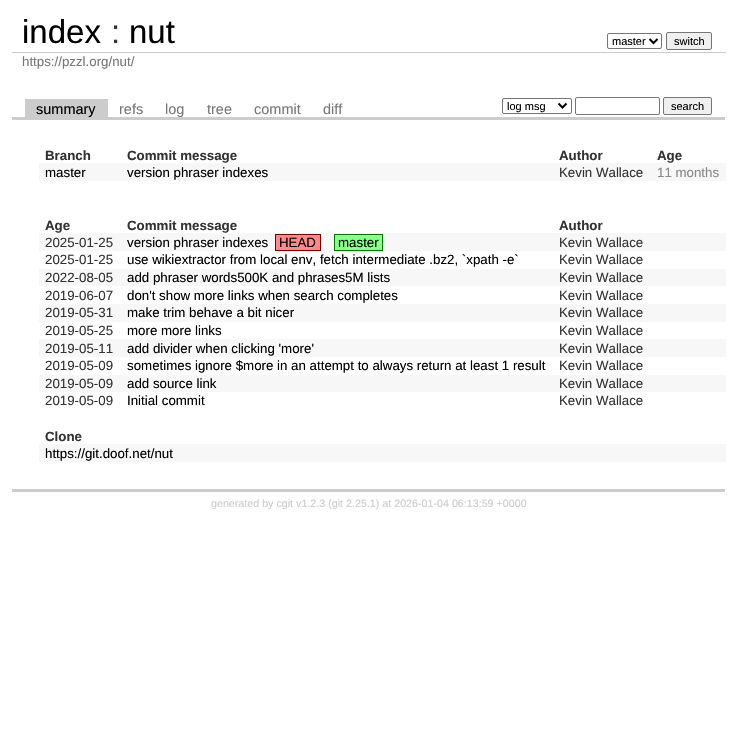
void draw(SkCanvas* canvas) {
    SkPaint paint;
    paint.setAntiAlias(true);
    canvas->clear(0xFFFFFFFF);
    SkFont font1(fontMgr->matchFamilyStyle("Liberation Sans", SkFontStyle::Normal()), 33);
    font1.setSubpixel(true);
    paint.setColor(0xFF000000);
    canvas->drawString("index", 22, 43, font1, paint);
    paint.setColor(0xFF333333);
    canvas->drawString(":", 111, 43, font1, paint);
    paint.setColor(0xFF000000);
    canvas->drawString("nut", 129, 43, font1, paint);
    paint.setStyle(SkPaint::kStroke_Style);
    paint.setStrokeWidth(1);
    paint.setColor(0xFF767676);
    canvas->drawRoundRect(SkRect::MakeXYWH(607.5f, 33.5f, 54, 15), 1.5f, 1.5f, paint);
    paint.setStrokeWidth(2);
    paint.setColor(0xFF000000);
    canvas->drawPath(SkPathBuilder().moveTo(649.5f, 39).lineTo(653.5f, 43).lineTo(657.5f, 39).detach(), paint);
    SkFont font2(fontMgr->matchFamilyStyle("Liberation Sans", SkFontStyle::Normal()), 11);
    font2.setSubpixel(true);
    paint.setStyle(SkPaint::kFill_Style);
    canvas->drawString("master", 612, 45, font2, paint);
    paint.setColor(0xFFEFEFEF);
    canvas->drawRoundRect(SkRect::MakeXYWH(666.5f, 32.5f, 45, 17), 1.5f, 1.5f, paint);
    paint.setStyle(SkPaint::kStroke_Style);
    paint.setStrokeWidth(1);
    paint.setColor(0xFF767676);
    canvas->drawRoundRect(SkRect::MakeXYWH(666.5f, 32.5f, 45, 17), 1.5f, 1.5f, paint);
    paint.setStyle(SkPaint::kFill_Style);
    paint.setColor(0xFF000000);
    canvas->drawString("switch", 674, 45, font2, paint);
    paint.setColor(0xFFCCCCCC);
    canvas->drawRect(SkRect::MakeXYWH(12, 52, 714, 1), paint);
    SkFont font3(fontMgr->matchFamilyStyle("Liberation Sans", SkFontStyle::Normal()), 13.3f);
    font3.setSubpixel(true);
    paint.setColor(0xFF777777);
    canvas->drawString("https://pzzl.org/nut/", 22, 66, font3, paint);
    paint.setColor(0xFFCCCCCC);
    canvas->drawRect(SkRect::MakeXYWH(12, 117, 713, 3), paint);
    canvas->drawRect(SkRect::MakeXYWH(25, 99, 83, 18), paint);
    SkFont font4(fontMgr->matchFamilyStyle("Liberation Sans", SkFontStyle::Normal()), 14.5f);
    font4.setSubpixel(true);
    paint.setColor(0xFF000000);
    canvas->drawString("summary", 36, 114, font4, paint);
    paint.setColor(0xFF777777);
    canvas->drawString("refs", 119, 114, font4, paint);
    canvas->drawString("log", 165, 114, font4, paint);
    canvas->drawString("tree", 207, 114, font4, paint);
    canvas->drawString("commit", 254, 114, font4, paint);
    canvas->drawString("diff", 323, 114, font4, paint);
    paint.setStyle(SkPaint::kStroke_Style);
    paint.setColor(0xFF767676);
    canvas->drawRoundRect(SkRect::MakeXYWH(502.5f, 98.5f, 69, 15), 1.5f, 1.5f, paint);
    paint.setStrokeWidth(2);
    paint.setColor(0xFF000000);
    canvas->drawPath(SkPathBuilder().moveTo(558.5f, 103.5f).lineTo(562.5f, 107.5f).lineTo(566.5f, 103.5f).detach(), paint);
    paint.setStyle(SkPaint::kFill_Style);
    canvas->drawString("log msg", 507, 110, font2, paint);
    paint.setStyle(SkPaint::kStroke_Style);
    paint.setStrokeWidth(1);
    paint.setColor(0xFF767676);
    canvas->drawRoundRect(SkRect::MakeXYWH(575.5f, 97.5f, 84, 17), 1.5f, 1.5f, paint);
    paint.setStyle(SkPaint::kFill_Style);
    paint.setColor(0xFFEFEFEF);
    canvas->drawRoundRect(SkRect::MakeXYWH(663.5f, 97.5f, 48, 17), 1.5f, 1.5f, paint);
    paint.setStyle(SkPaint::kStroke_Style);
    paint.setColor(0xFF767676);
    canvas->drawRoundRect(SkRect::MakeXYWH(663.5f, 97.5f, 48, 17), 1.5f, 1.5f, paint);
    paint.setStyle(SkPaint::kFill_Style);
    paint.setColor(0xFF000000);
    canvas->drawString("search", 671, 110, font2, paint);
    paint.setColor(0xFFCCCCCC);
    canvas->drawRect(SkRect::MakeXYWH(12, 489, 713, 3), paint);
    SkFont font5(fontMgr->matchFamilyStyle("Liberation Sans", SkFontStyle::Bold()), 13.3f);
    font5.setSubpixel(true);
    paint.setColor(0xFF333333);
    canvas->drawString("Branch", 45, 160, font5, paint);
    canvas->drawString("Commit message", 127, 160, font5, paint);
    canvas->drawString("Author", 559, 160, font5, paint);
    canvas->drawString("Age", 657, 160, font5, paint);
    paint.setColor(0xFFF7F7F7);
    canvas->drawRect(SkRect::MakeXYWH(39, 163, 687, 18), paint);
    paint.setColor(0xFF000000);
    canvas->drawString("master", 45, 177, font3, paint);
    canvas->drawString("version phraser indexes", 127, 177, font3, paint);
    paint.setColor(0xFF333333);
    canvas->drawString("Kevin Wallace", 559, 177, font3, paint);
    paint.setColor(0xFF888888);
    canvas->drawString("11 months", 657, 177, font3, paint);
    paint.setColor(0xFF333333);
    canvas->drawString("Age", 45, 230, font5, paint);
    canvas->drawString("Commit message", 127, 230, font5, paint);
    canvas->drawString("Author", 559, 230, font5, paint);
    paint.setColor(0xFFF7F7F7);
    canvas->drawRect(SkRect::MakeXYWH(39, 233, 687, 18), paint);
    paint.setColor(0xFF333333);
    canvas->drawString("2025-01-25", 45, 247, font3, paint);
    paint.setColor(0xFF000000);
    canvas->drawString("version phraser indexes", 127, 247, font3, paint);
    paint.setColor(0xFFFF8888);
    canvas->drawRect(SkRect::MakeXYWH(275.5f, 234.5f, 45, 16), paint);
    paint.setStyle(SkPaint::kStroke_Style);
    paint.setColor(0xFF770000);
    canvas->drawRect(SkRect::MakeXYWH(275.5f, 234.5f, 45, 16), paint);
    paint.setStyle(SkPaint::kFill_Style);
    paint.setColor(0xFF000000);
    canvas->drawString("HEAD", 279, 247, font3, paint);
    paint.setColor(0xFF88FF88);
    canvas->drawRect(SkRect::MakeXYWH(334.5f, 234.5f, 48, 16), paint);
    paint.setStyle(SkPaint::kStroke_Style);
    paint.setColor(0xFF007700);
    canvas->drawRect(SkRect::MakeXYWH(334.5f, 234.5f, 48, 16), paint);
    paint.setStyle(SkPaint::kFill_Style);
    paint.setColor(0xFF000000);
    canvas->drawString("master", 338, 247, font3, paint);
    paint.setColor(0xFF333333);
    canvas->drawString("Kevin Wallace", 559, 247, font3, paint);
    canvas->drawString("2025-01-25", 45, 264, font3, paint);
    paint.setColor(0xFF000000);
    canvas->drawString("use wikiextractor from local env, fetch intermediate .bz2, `xpath -e`", 127, 264, font3, paint);
    paint.setColor(0xFF333333);
    canvas->drawString("Kevin Wallace", 559, 264, font3, paint);
    paint.setColor(0xFFF7F7F7);
    canvas->drawRect(SkRect::MakeXYWH(39, 269, 687, 17), paint);
    paint.setColor(0xFF333333);
    canvas->drawString("2022-08-05", 45, 282, font3, paint);
    paint.setColor(0xFF000000);
    canvas->drawString("add phraser words500K and phrases5M lists", 127, 282, font3, paint);
    paint.setColor(0xFF333333);
    canvas->drawString("Kevin Wallace", 559, 282, font3, paint);
    canvas->drawString("2019-06-07", 45, 300, font3, paint);
    paint.setColor(0xFF000000);
    canvas->drawString("don't show more links when search completes", 127, 300, font3, paint);
    paint.setColor(0xFF333333);
    canvas->drawString("Kevin Wallace", 559, 300, font3, paint);
    paint.setColor(0xFFF7F7F7);
    canvas->drawRect(SkRect::MakeXYWH(39, 304, 687, 18), paint);
    paint.setColor(0xFF333333);
    canvas->drawString("2019-05-31", 45, 317, font3, paint);
    paint.setColor(0xFF000000);
    canvas->drawString("make trim behave a bit nicer", 127, 317, font3, paint);
    paint.setColor(0xFF333333);
    canvas->drawString("Kevin Wallace", 559, 317, font3, paint);
    canvas->drawString("2019-05-25", 45, 335, font3, paint);
    paint.setColor(0xFF000000);
    canvas->drawString("more more links", 127, 335, font3, paint);
    paint.setColor(0xFF333333);
    canvas->drawString("Kevin Wallace", 559, 335, font3, paint);
    paint.setColor(0xFFF7F7F7);
    canvas->drawRect(SkRect::MakeXYWH(39, 339, 687, 18), paint);
    paint.setColor(0xFF333333);
    canvas->drawString("2019-05-11", 45, 353, font3, paint);
    paint.setColor(0xFF000000);
    canvas->drawString("add divider when clicking 'more'", 127, 353, font3, paint);
    paint.setColor(0xFF333333);
    canvas->drawString("Kevin Wallace", 559, 353, font3, paint);
    canvas->drawString("2019-05-09", 45, 370, font3, paint);
    paint.setColor(0xFF000000);
    canvas->drawString("sometimes ignore $more in an attempt to always return at least 1 result", 127, 370, font3, paint);
    paint.setColor(0xFF333333);
    canvas->drawString("Kevin Wallace", 559, 370, font3, paint);
    paint.setColor(0xFFF7F7F7);
    canvas->drawRect(SkRect::MakeXYWH(39, 375, 687, 17), paint);
    paint.setColor(0xFF333333);
    canvas->drawString("2019-05-09", 45, 388, font3, paint);
    paint.setColor(0xFF000000);
    canvas->drawString("add source link", 127, 388, font3, paint);
    paint.setColor(0xFF333333);
    canvas->drawString("Kevin Wallace", 559, 388, font3, paint);
    canvas->drawString("2019-05-09", 45, 405, font3, paint);
    paint.setColor(0xFF000000);
    canvas->drawString("Initial commit", 127, 405, font3, paint);
    paint.setColor(0xFF333333);
    canvas->drawString("Kevin Wallace", 559, 405, font3, paint);
    canvas->drawString("Clone", 45, 441, font5, paint);
    paint.setColor(0xFFF7F7F7);
    canvas->drawRect(SkRect::MakeXYWH(39, 444, 687, 18), paint);
    paint.setColor(0xFF000000);
    canvas->drawString("https://git.doof.net/nut", 45, 458, font3, paint);
    SkFont font6(fontMgr->matchFamilyStyle("Liberation Sans", SkFontStyle::Normal()), 10.7f);
    font6.setSubpixel(true);
    paint.setColor(0xFFCCCCCC);
    canvas->drawString("generated by cgit v1.2.3 (git 2.25.1) at 2026-01-04 06:13:59 +0000", 211, 507, font6, paint);
}
